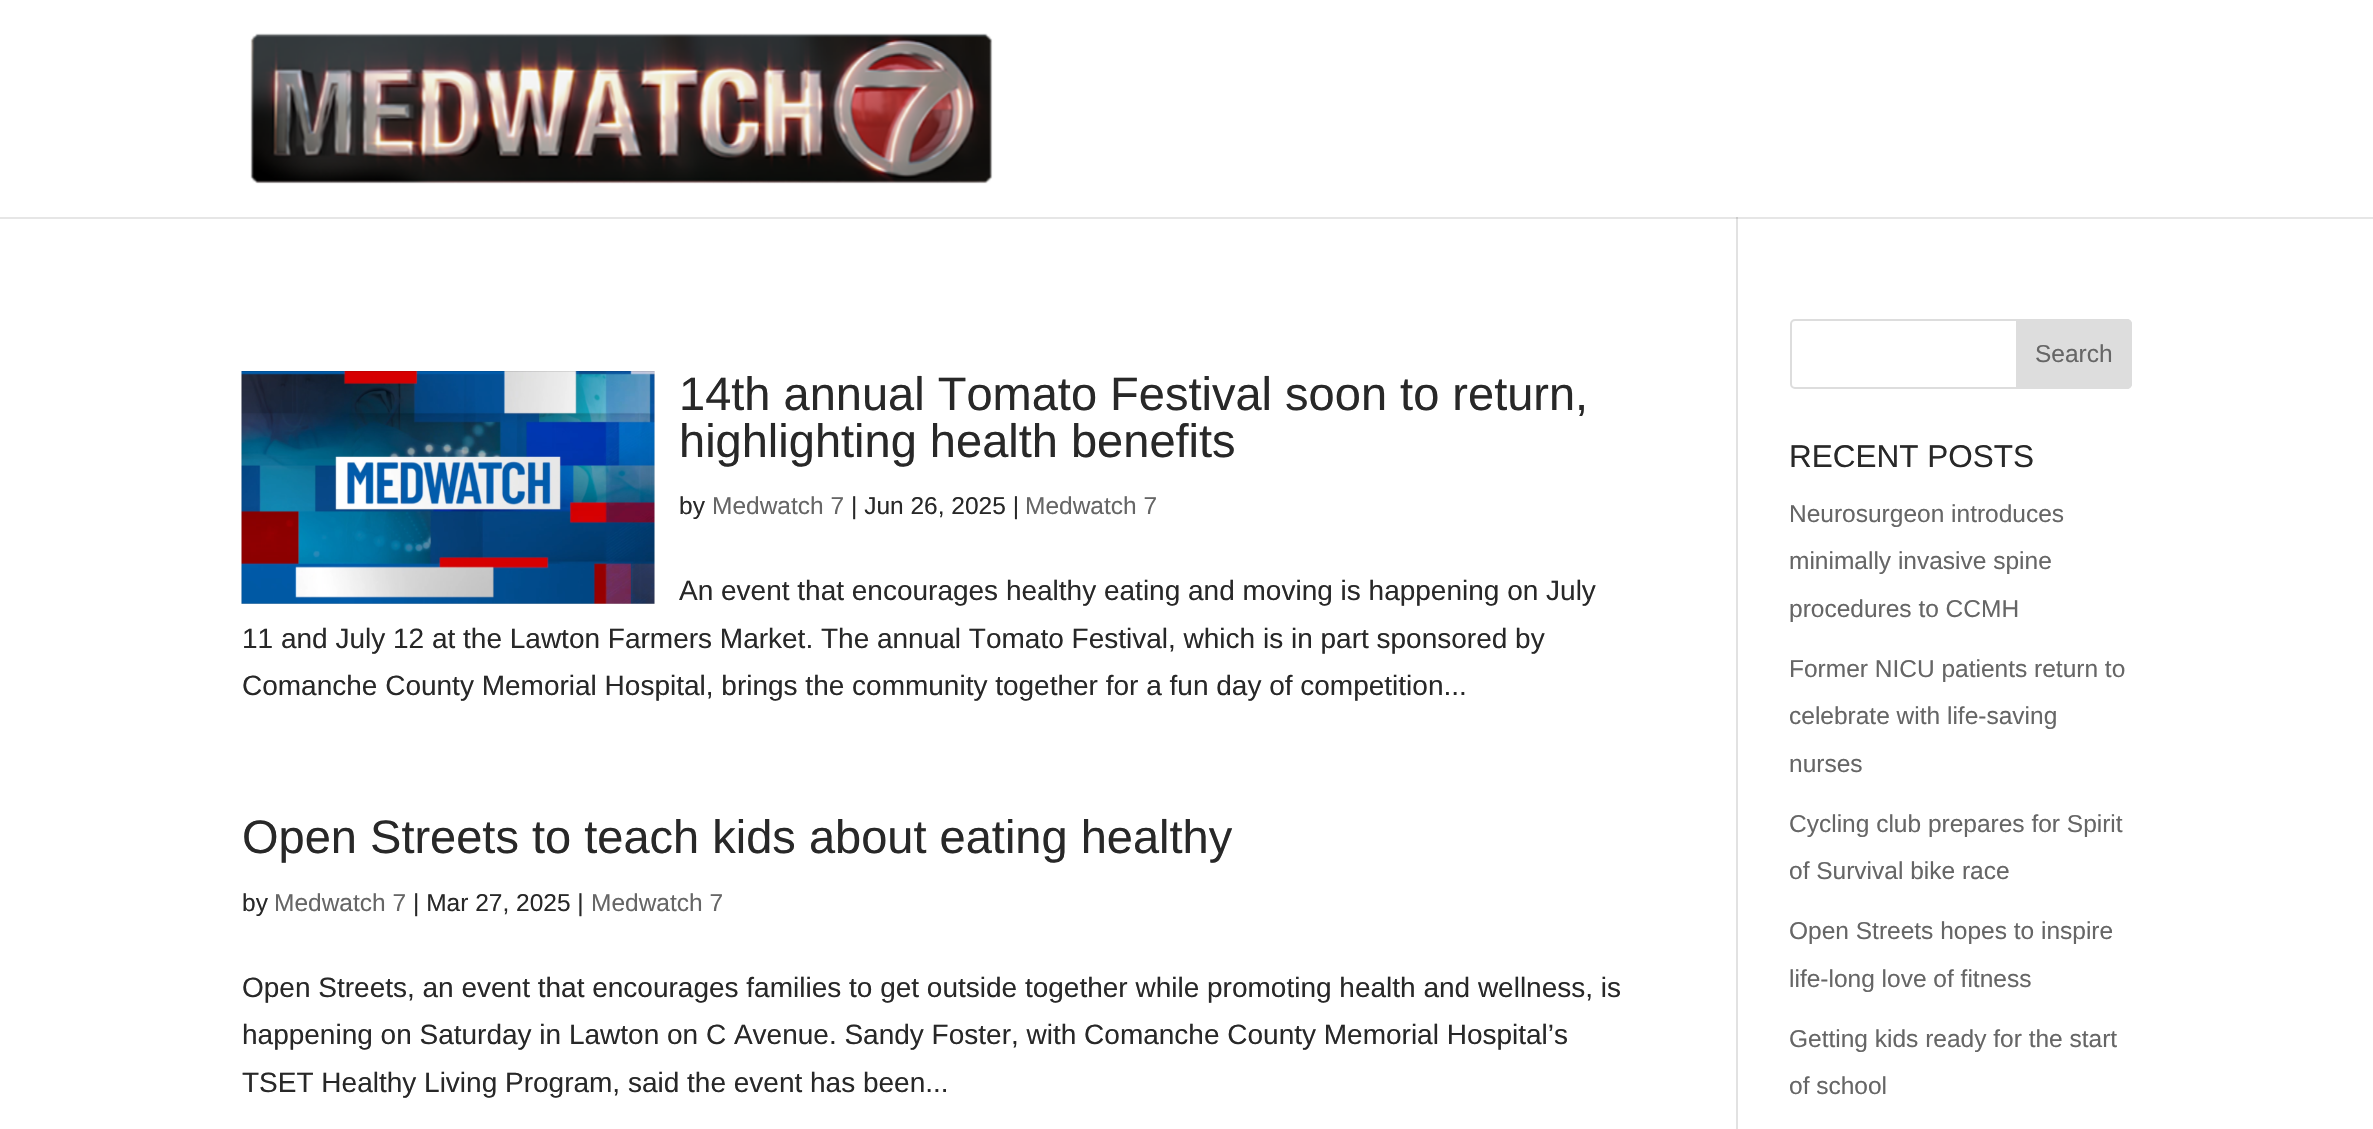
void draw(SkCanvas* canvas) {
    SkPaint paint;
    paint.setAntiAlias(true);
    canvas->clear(0xFFFFFFFF);
    paint.setColor(0xFFE6E6E6);
    canvas->drawRect(SkRect::MakeXYWH(0, 217, 2373, 2), paint);
    canvas->drawImageRect(SkImages::DeferredFromEncodedData(SkData::MakeFromFileName("img1.png")), SkRect::MakeXYWH(250, 33, 743, 151), SkSamplingOptions());
    paint.setColor(0xFFE2E2E2);
    canvas->drawRect(SkRect::MakeXYWH(1736, 217, 2, 912), paint);
    paint.setColor(0xFFCBCBCB);
    canvas->drawRect(SkRect::MakeXYWH(1736, 217, 2, 2), paint);
    canvas->drawImageRect(SkImages::DeferredFromEncodedData(SkData::MakeFromFileName("img2.png")), SkRect::MakeXYWH(241, 371, 414, 233), SkSamplingOptions());
    SkFont font1(fontMgr->matchFamilyStyle("Liberation Sans", SkFontStyle::Normal()), 47);
    font1.setSubpixel(true);
    paint.setColor(0xFF282828);
    canvas->drawString("14th annual Tomato Festival soon to return,", 679, 410, font1, paint);
    canvas->drawString("highlighting health benefits", 679, 457, font1, paint);
    SkFont font2(fontMgr->matchFamilyStyle("Liberation Sans", SkFontStyle::Normal()), 24.5f);
    font2.setSubpixel(true);
    canvas->drawString("by", 679, 514, font2, paint);
    paint.setColor(0xFF666666);
    canvas->drawString("Medwatch 7", 712, 514, font2, paint);
    paint.setColor(0xFF282828);
    canvas->drawString("| Jun 26, 2025 |", 851, 514, font2, paint);
    paint.setColor(0xFF666666);
    canvas->drawString("Medwatch 7", 1025, 514, font2, paint);
    SkFont font3(fontMgr->matchFamilyStyle("Liberation Sans", SkFontStyle::Normal()), 28);
    font3.setSubpixel(true);
    paint.setColor(0xFF282828);
    canvas->drawString("An event that encourages healthy eating and moving is happening on July", 679, 600, font3, paint);
    canvas->drawString("11 and July 12 at the Lawton Farmers Market. The annual Tomato Festival, which is in part sponsored by", 242, 648, font3, paint);
    canvas->drawString("Comanche County Memorial Hospital, brings the community together for a fun day of competition...", 242, 695, font3, paint);
    canvas->drawString("Open Streets to teach kids about eating healthy", 242, 853, font1, paint);
    canvas->drawString("by", 242, 911, font2, paint);
    paint.setColor(0xFF666666);
    canvas->drawString("Medwatch 7", 274, 911, font2, paint);
    paint.setColor(0xFF282828);
    canvas->drawString("| Mar 27, 2025 |", 413, 911, font2, paint);
    paint.setColor(0xFF666666);
    canvas->drawString("Medwatch 7", 591, 911, font2, paint);
    paint.setColor(0xFF282828);
    canvas->drawString("Open Streets, an event that encourages families to get outside together while promoting health and wellness, is", 242, 997, font3, paint);
    canvas->drawString("happening on Saturday in Lawton on C Avenue. Sandy Foster, with Comanche County Memorial Hospital’s", 242, 1044, font3, paint);
    canvas->drawString("TSET Healthy Living Program, said the event has been...", 242, 1092, font3, paint);
    paint.setStyle(SkPaint::kStroke_Style);
    paint.setStrokeWidth(2);
    paint.setColor(0xFFDDDDDD);
    canvas->drawRoundRect(SkRect::MakeXYWH(1791, 320, 340, 68), 4, 4, paint);
    paint.setStyle(SkPaint::kFill_Style);
    canvas->drawPath(SkPathBuilder().moveTo(2017, 320).lineTo(2127, 320).cubicTo(2129, 320, 2131, 322, 2131, 324).lineTo(2131, 384).cubicTo(2131, 386, 2129, 388, 2127, 388).lineTo(2017, 388).close().detach(), paint);
    paint.setStyle(SkPaint::kStroke_Style);
    canvas->drawPath(SkPathBuilder().moveTo(2017, 320).lineTo(2127, 320).cubicTo(2129, 320, 2131, 322, 2131, 324).lineTo(2131, 384).cubicTo(2131, 386, 2129, 388, 2127, 388).lineTo(2017, 388).close().detach(), paint);
    paint.setStyle(SkPaint::kFill_Style);
    paint.setColor(0xFF666666);
    canvas->drawString("Search", 2035, 362, font2, paint);
    SkFont font4(fontMgr->matchFamilyStyle("Liberation Sans", SkFontStyle::Normal()), 31.5f);
    font4.setSubpixel(true);
    paint.setColor(0xFF282828);
    canvas->drawString("RECENT POSTS", 1789, 467, font4, paint);
    paint.setColor(0xFF666666);
    canvas->drawString("Neurosurgeon introduces", 1789, 522, font2, paint);
    canvas->drawString("minimally invasive spine", 1789, 569, font2, paint);
    canvas->drawString("procedures to CCMH", 1789, 617, font2, paint);
    canvas->drawString("Former NICU patients return to", 1789, 677, font2, paint);
    canvas->drawString("celebrate with life-saving", 1789, 724, font2, paint);
    canvas->drawString("nurses", 1789, 772, font2, paint);
    canvas->drawString("Cycling club prepares for Spirit", 1789, 832, font2, paint);
    canvas->drawString("of Survival bike race", 1789, 879, font2, paint);
    canvas->drawString("Open Streets hopes to inspire", 1789, 939, font2, paint);
    canvas->drawString("life-long love of fitness", 1789, 987, font2, paint);
    canvas->drawString("Getting kids ready for the start", 1789, 1047, font2, paint);
    canvas->drawString("of school", 1789, 1094, font2, paint);
}
